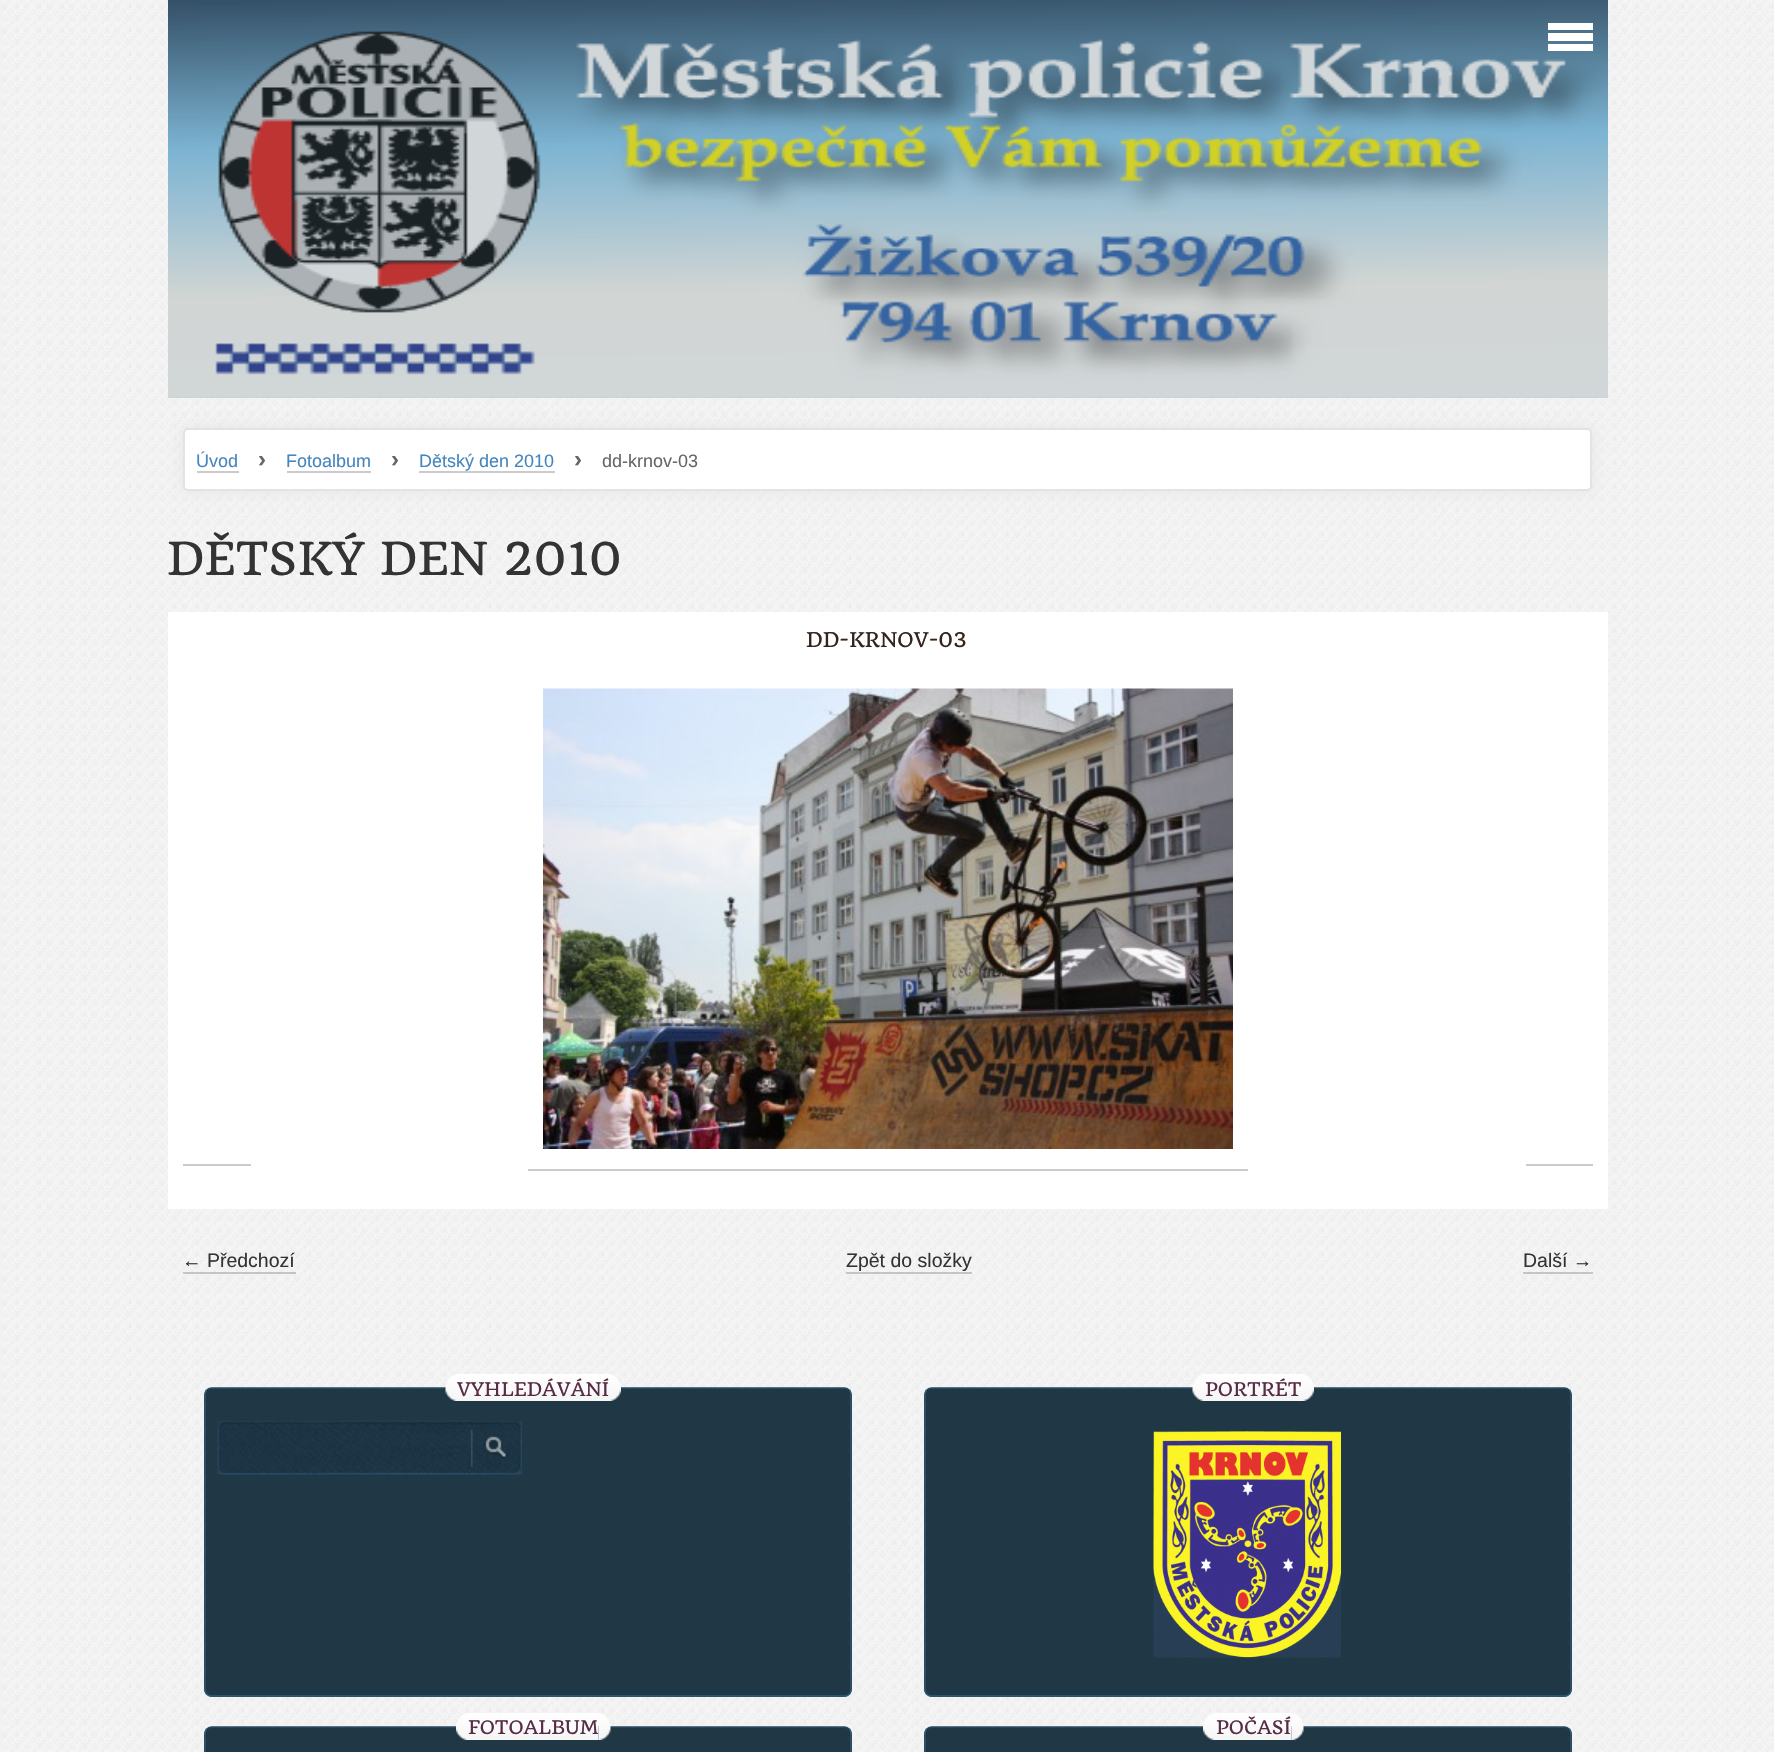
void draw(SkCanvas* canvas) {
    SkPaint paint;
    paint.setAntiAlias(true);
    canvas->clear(0xFFF2F2F2);
    canvas->drawImageRect(SkImages::DeferredFromEncodedData(SkData::MakeFromFileName("img1.png")), SkRect::MakeXYWH(2, 0, 1771, 1752), SkSamplingOptions());
    canvas->drawImageRect(SkImages::DeferredFromEncodedData(SkData::MakeFromFileName("img2.png")), SkRect::MakeXYWH(168, 0, 1440, 398), SkSamplingOptions());
    paint.setColor(0x331F3745);
    canvas->drawRect(SkRect::MakeXYWH(168, 0, 1440, 398), paint);
    paint.setColor(0xFFFFFFFF);
    canvas->drawRect(SkRect::MakeXYWH(1548, 23, 45, 7), paint);
    canvas->drawRect(SkRect::MakeXYWH(1548, 33, 45, 8), paint);
    canvas->drawRect(SkRect::MakeXYWH(1548, 44, 45, 7), paint);
    paint.setColor(0xFFE6E6E6);
    paint.setMaskFilter(SkMaskFilter::MakeBlur(kNormal_SkBlurStyle, 7.5f));
    canvas->drawRoundRect(SkRect::MakeXYWH(183, 428, 1409, 63), 5, 5, paint);
    paint.setMaskFilter(nullptr);
    paint.setColor(0xFFFFFFFF);
    canvas->drawRoundRect(SkRect::MakeXYWH(184, 429, 1407, 61), 4, 4, paint);
    paint.setStyle(SkPaint::kStroke_Style);
    paint.setStrokeWidth(2);
    paint.setColor(0xFFE3E3E3);
    canvas->drawRoundRect(SkRect::MakeXYWH(184, 429, 1407, 61), 4, 4, paint);
    SkFont font1(fontMgr->matchFamilyStyle("Liberation Sans", SkFontStyle::Normal()), 18);
    font1.setSubpixel(true);
    paint.setStyle(SkPaint::kFill_Style);
    paint.setColor(0xFF4685BD);
    canvas->drawString("Úvod", 196, 467, font1, paint);
    paint.setColor(0xFFCBCBCB);
    canvas->drawRect(SkRect::MakeXYWH(197, 471, 42, 2), paint);
    SkFont font2(fontMgr->matchFamilyStyle("Liberation Sans", SkFontStyle::Bold()), 24);
    font2.setSubpixel(true);
    paint.setColor(0xFF666666);
    canvas->drawString("›", 258, 467, font2, paint);
    paint.setColor(0xFF4685BD);
    canvas->drawString("Fotoalbum", 286, 467, font1, paint);
    paint.setColor(0xFFCBCBCB);
    canvas->drawRect(SkRect::MakeXYWH(287, 471, 84, 2), paint);
    paint.setColor(0xFF666666);
    canvas->drawString("›", 391, 467, font2, paint);
    paint.setColor(0xFF4685BD);
    canvas->drawString("Dětský den 2010", 419, 467, font1, paint);
    paint.setColor(0xFFCBCBCB);
    canvas->drawRect(SkRect::MakeXYWH(419, 471, 136, 2), paint);
    paint.setColor(0xFF666666);
    canvas->drawString("›", 574, 467, font2, paint);
    canvas->drawString("dd-krnov-03", 602, 467, font1, paint);
    SkFont font3(fontMgr->matchFamilyStyle("Quando", SkFontStyle::Normal()), 51);
    font3.setSubpixel(true);
    paint.setColor(0xFF333333);
    canvas->drawString("DĚTSKÝ DEN 2010", 167, 575, font3, paint);
    paint.setColor(0xFFFFFFFF);
    canvas->drawRect(SkRect::MakeXYWH(168, 612, 1440, 597), paint);
    SkFont font4(fontMgr->matchFamilyStyle("Quando", SkFontStyle::Normal()), 22.75f);
    font4.setSubpixel(true);
    paint.setColor(0xFF33251B);
    canvas->drawString("DD-KRNOV-03", 806, 647, font4, paint);
    canvas->drawImageRect(SkImages::DeferredFromEncodedData(SkData::MakeFromFileName("img3.png")), SkRect::MakeXYWH(543, 688, 690, 461), SkSamplingOptions());
    paint.setColor(0xFFCBCBCB);
    canvas->drawRect(SkRect::MakeXYWH(183, 1164, 68, 2), paint);
    canvas->drawRect(SkRect::MakeXYWH(1526, 1164, 67, 2), paint);
    canvas->drawRect(SkRect::MakeXYWH(528, 1169, 720, 2), paint);
    SkFont font5(fontMgr->matchFamilyStyle("Liberation Sans", SkFontStyle::Normal()), 19.5f);
    font5.setSubpixel(true);
    paint.setColor(0xFF333333);
    canvas->drawString("← Předchozí", 182, 1267, font5, paint);
    paint.setColor(0x80969696);
    canvas->drawRect(SkRect::MakeXYWH(183, 1272, 113, 2), paint);
    paint.setColor(0xFF333333);
    canvas->drawString("Zpět do složky", 846, 1267, font5, paint);
    paint.setColor(0x80969696);
    canvas->drawRect(SkRect::MakeXYWH(846, 1272, 126, 2), paint);
    paint.setColor(0xFF333333);
    canvas->drawString("Další →", 1523, 1267, font5, paint);
    paint.setColor(0x80969696);
    canvas->drawRect(SkRect::MakeXYWH(1523, 1272, 70, 2), paint);
    paint.setColor(0xFF203745);
    canvas->drawRoundRect(SkRect::MakeXYWH(204, 1388, 648, 309), 8, 8, paint);
    paint.setStyle(SkPaint::kStroke_Style);
    paint.setStrokeWidth(1.5f);
    paint.setColor(0xFF274A61);
    canvas->drawPath(SkPathBuilder().moveTo(206.5f, 1390).cubicTo(208, 1389, 209.5f, 1388, 211.5f, 1388).lineTo(844.5f, 1388).cubicTo(846.5f, 1388, 848, 1389, 849.5f, 1390).detach(), paint);
    paint.setColor(0xFF2F556F);
    canvas->drawPath(SkPathBuilder().moveTo(849.5f, 1390).cubicTo(850.5f, 1391.5f, 851, 1393, 851, 1395).lineTo(851, 1689).cubicTo(851, 1691, 850.5f, 1692.5f, 849.5f, 1694).detach(), paint);
    paint.setColor(0xFF315D7A);
    canvas->drawPath(SkPathBuilder().moveTo(849.5f, 1694).cubicTo(848, 1695, 846.5f, 1696, 844.5f, 1696).lineTo(211.5f, 1696).cubicTo(209.5f, 1696, 208, 1695, 206.5f, 1694).detach(), paint);
    paint.setColor(0xFF2F556F);
    canvas->drawPath(SkPathBuilder().moveTo(206.5f, 1694).cubicTo(205.5f, 1692.5f, 205, 1691, 205, 1689).lineTo(205, 1395).cubicTo(205, 1393, 205.5f, 1391.5f, 206.5f, 1390).detach(), paint);
    canvas->drawImageRect(SkImages::DeferredFromEncodedData(SkData::MakeFromFileName("img4.png")), SkRect::MakeXYWH(445, 1374, 164, 27), SkSamplingOptions());
    SkFont font6(fontMgr->matchFamilyStyle("Quando", SkFontStyle::Normal()), 21);
    font6.setSubpixel(true);
    paint.setStyle(SkPaint::kFill_Style);
    paint.setColor(0xFF592C46);
    canvas->drawString("VYHLEDÁVÁNÍ", 457, 1396, font6, paint);
    canvas->drawImageRect(SkImages::DeferredFromEncodedData(SkData::MakeFromFileName("img5.png")), SkRect::MakeXYWH(609, 1374, 12, 27), SkSamplingOptions());
    canvas->drawImageRect(SkImages::DeferredFromEncodedData(SkData::MakeFromFileName("img6.png")), SkRect::MakeXYWH(217, 1420, 253, 55), SkSamplingOptions());
    canvas->drawImageRect(SkImages::DeferredFromEncodedData(SkData::MakeFromFileName("img7.png")), SkRect::MakeXYWH(469, 1421, 53, 54), SkSamplingOptions());
    paint.setColor(0xFF203745);
    canvas->drawRoundRect(SkRect::MakeXYWH(924, 1388, 648, 309), 8, 8, paint);
    paint.setStyle(SkPaint::kStroke_Style);
    paint.setColor(0xFF274A61);
    canvas->drawPath(SkPathBuilder().moveTo(926.5f, 1390).cubicTo(928, 1389, 929.5f, 1388, 931.5f, 1388).lineTo(1564.5f, 1388).cubicTo(1566.5f, 1388, 1568, 1389, 1569.5f, 1390).detach(), paint);
    paint.setColor(0xFF2F556F);
    canvas->drawPath(SkPathBuilder().moveTo(1569.5f, 1390).cubicTo(1570.5f, 1391.5f, 1571, 1393, 1571, 1395).lineTo(1571, 1689).cubicTo(1571, 1691, 1570.5f, 1692.5f, 1569.5f, 1694).detach(), paint);
    paint.setColor(0xFF315D7A);
    canvas->drawPath(SkPathBuilder().moveTo(1569.5f, 1694).cubicTo(1568, 1695, 1566.5f, 1696, 1564.5f, 1696).lineTo(931.5f, 1696).cubicTo(929.5f, 1696, 928, 1695, 926.5f, 1694).detach(), paint);
    paint.setColor(0xFF2F556F);
    canvas->drawPath(SkPathBuilder().moveTo(926.5f, 1694).cubicTo(925.5f, 1692.5f, 925, 1691, 925, 1689).lineTo(925, 1395).cubicTo(925, 1393, 925.5f, 1391.5f, 926.5f, 1390).detach(), paint);
    canvas->drawImageRect(SkImages::DeferredFromEncodedData(SkData::MakeFromFileName("img8.png")), SkRect::MakeXYWH(1192, 1374, 110, 27), SkSamplingOptions());
    paint.setStyle(SkPaint::kFill_Style);
    paint.setColor(0xFF592C46);
    canvas->drawString("PORTRÉT", 1205, 1396, font6, paint);
    canvas->drawImageRect(SkImages::DeferredFromEncodedData(SkData::MakeFromFileName("img9.png")), SkRect::MakeXYWH(1302, 1374, 12, 27), SkSamplingOptions());
    canvas->drawImageRect(SkImages::DeferredFromEncodedData(SkData::MakeFromFileName("img10.png")), SkRect::MakeXYWH(1153, 1431, 188, 227), SkSamplingOptions());
    paint.setColor(0xFF203745);
    canvas->drawRoundRect(SkRect::MakeXYWH(204, 1727, 648, 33), 8, 8, paint);
    paint.setStyle(SkPaint::kStroke_Style);
    paint.setColor(0xFF274A61);
    canvas->drawPath(SkPathBuilder().moveTo(206.5f, 1729).cubicTo(208, 1728, 209.5f, 1727, 211.5f, 1727).lineTo(844.5f, 1727).cubicTo(846.5f, 1727, 848, 1728, 849.5f, 1729).detach(), paint);
    paint.setColor(0xFF2F556F);
    canvas->drawPath(SkPathBuilder().moveTo(849.5f, 1729).cubicTo(850.5f, 1730.5f, 851, 1732, 851, 1734).lineTo(851, 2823).cubicTo(851, 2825, 850.5f, 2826.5f, 849.5f, 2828).detach(), paint);
    canvas->drawPath(SkPathBuilder().moveTo(206.5f, 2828).cubicTo(205.5f, 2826.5f, 205, 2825, 205, 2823).lineTo(205, 1734).cubicTo(205, 1732, 205.5f, 1730.5f, 206.5f, 1729).detach(), paint);
    canvas->drawImageRect(SkImages::DeferredFromEncodedData(SkData::MakeFromFileName("img11.png")), SkRect::MakeXYWH(456, 1713, 143, 27), SkSamplingOptions());
    paint.setStyle(SkPaint::kFill_Style);
    paint.setColor(0xFF592C46);
    canvas->drawString("FOTOALBUM", 468, 1734, font6, paint);
    canvas->drawImageRect(SkImages::DeferredFromEncodedData(SkData::MakeFromFileName("img12.png")), SkRect::MakeXYWH(598, 1713, 13, 27), SkSamplingOptions());
    paint.setColor(0xFF203745);
    canvas->drawRoundRect(SkRect::MakeXYWH(924, 1727, 648, 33), 8, 8, paint);
    paint.setStyle(SkPaint::kStroke_Style);
    paint.setColor(0xFF274A61);
    canvas->drawPath(SkPathBuilder().moveTo(926.5f, 1729).cubicTo(928, 1728, 929.5f, 1727, 931.5f, 1727).lineTo(1564.5f, 1727).cubicTo(1566.5f, 1727, 1568, 1728, 1569.5f, 1729).detach(), paint);
    paint.setColor(0xFF2F556F);
    canvas->drawPath(SkPathBuilder().moveTo(1569.5f, 1729).cubicTo(1570.5f, 1730.5f, 1571, 1732, 1571, 1734).lineTo(1571, 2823).cubicTo(1571, 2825, 1570.5f, 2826.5f, 1569.5f, 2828).detach(), paint);
    canvas->drawPath(SkPathBuilder().moveTo(926.5f, 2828).cubicTo(925.5f, 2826.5f, 925, 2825, 925, 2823).lineTo(925, 1734).cubicTo(925, 1732, 925.5f, 1730.5f, 926.5f, 1729).detach(), paint);
    canvas->drawImageRect(SkImages::DeferredFromEncodedData(SkData::MakeFromFileName("img13.png")), SkRect::MakeXYWH(1203, 1713, 89, 27), SkSamplingOptions());
    paint.setStyle(SkPaint::kFill_Style);
    paint.setColor(0xFF592C46);
    canvas->drawString("POČASÍ", 1216, 1734, font6, paint);
    canvas->drawImageRect(SkImages::DeferredFromEncodedData(SkData::MakeFromFileName("img14.png")), SkRect::MakeXYWH(1291, 1713, 13, 27), SkSamplingOptions());
}
